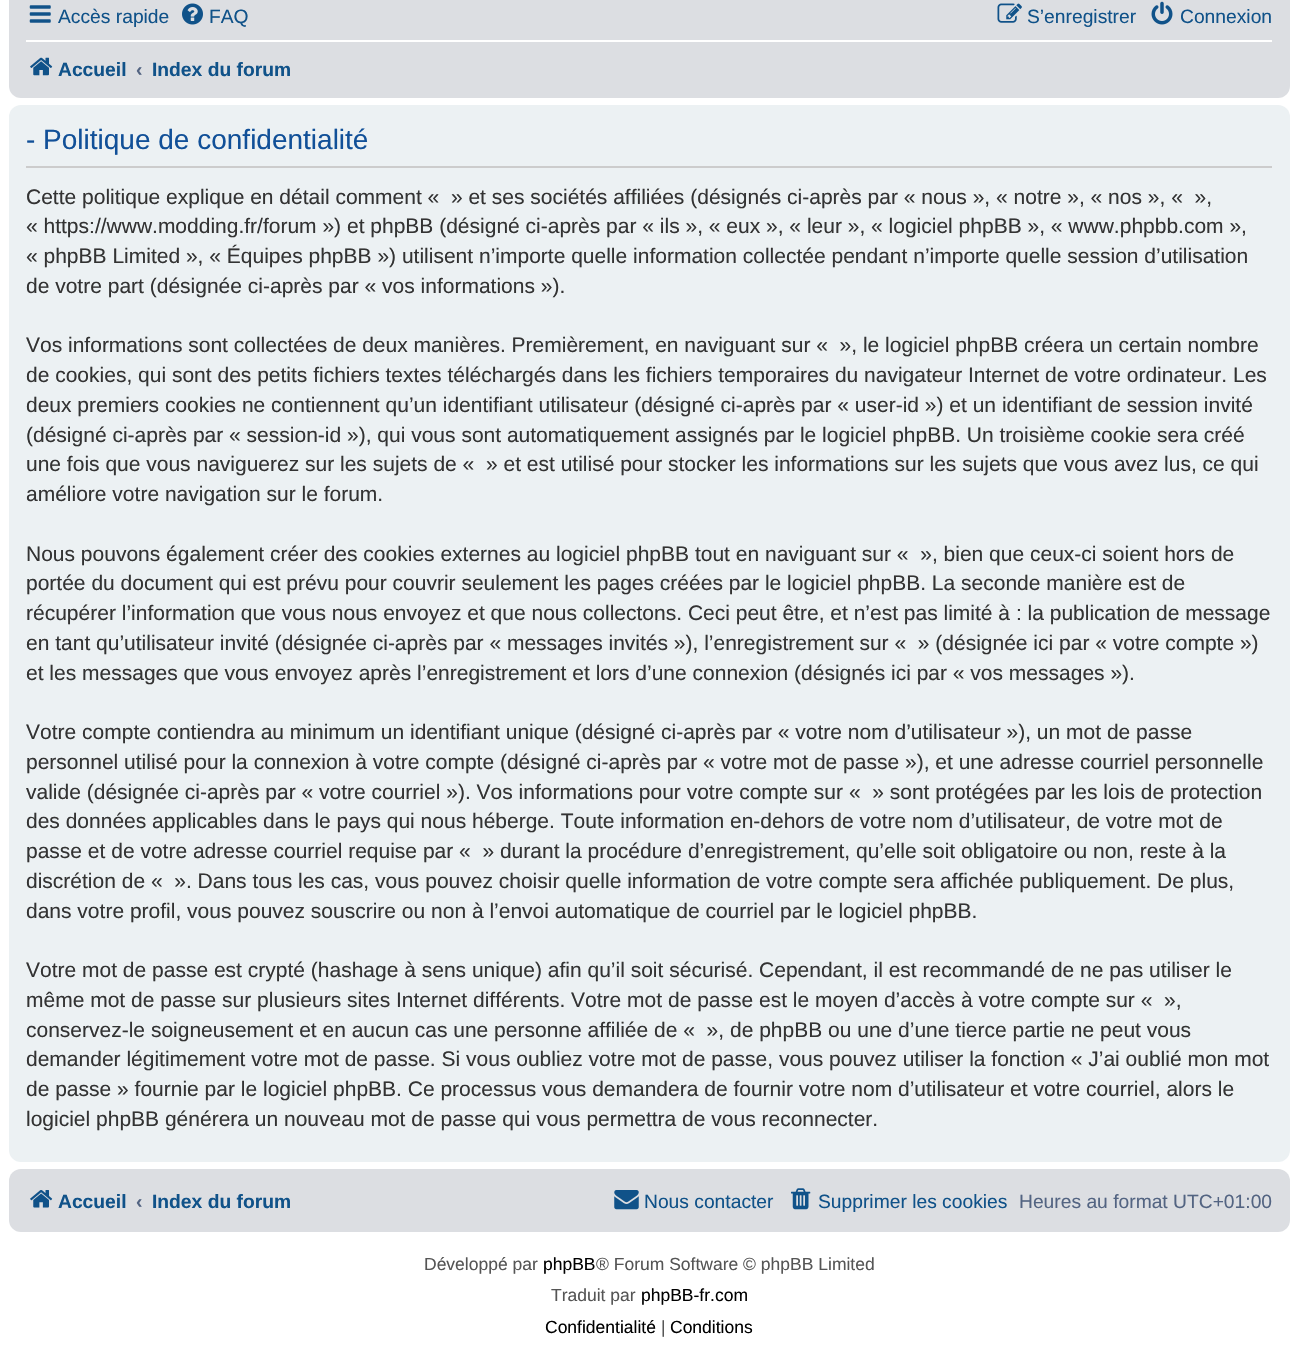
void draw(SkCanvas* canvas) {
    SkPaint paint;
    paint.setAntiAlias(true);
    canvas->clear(0xFFFFFFFF);
    paint.setColor(0xFFDCDEE2);
    canvas->drawRoundRect(SkRect::MakeXYWH(9, -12, 1281, 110), 12, 12, paint);
    canvas->drawImageRect(SkImages::DeferredFromEncodedData(SkData::MakeFromFileName("img1.png")), SkRect::MakeXYWH(29, 5, 22, 18), SkSamplingOptions());
    SkFont font1(fontMgr->matchFamilyStyle("Liberation Sans", SkFontStyle::Normal()), 19.25f);
    font1.setSubpixel(true);
    paint.setColor(0xFF105289);
    canvas->drawString("Accès rapide", 58, 23, font1, paint);
    canvas->drawImageRect(SkImages::DeferredFromEncodedData(SkData::MakeFromFileName("img2.png")), SkRect::MakeXYWH(182, 3, 21, 22), SkSamplingOptions());
    canvas->drawString("FAQ", 209, 23, font1, paint);
    canvas->drawImageRect(SkImages::DeferredFromEncodedData(SkData::MakeFromFileName("img3.png")), SkRect::MakeXYWH(997, 3, 25, 20), SkSamplingOptions());
    canvas->drawString("S’enregistrer", 1027, 23, font1, paint);
    canvas->drawImageRect(SkImages::DeferredFromEncodedData(SkData::MakeFromFileName("img4.png")), SkRect::MakeXYWH(1151, 1, 22, 24), SkSamplingOptions());
    canvas->drawString("Connexion", 1180, 23, font1, paint);
    paint.setColor(0xFFFFFFFF);
    canvas->drawRect(SkRect::MakeXYWH(26, 40, 1246, 2), paint);
    canvas->drawImageRect(SkImages::DeferredFromEncodedData(SkData::MakeFromFileName("img5.png")), SkRect::MakeXYWH(30, 57, 23, 19), SkSamplingOptions());
    SkFont font2(fontMgr->matchFamilyStyle("Liberation Sans", SkFontStyle::Bold()), 19.25f);
    font2.setSubpixel(true);
    paint.setColor(0xFF105289);
    canvas->drawString("Accueil", 58, 76, font2, paint);
    paint.setColor(0xFF536482);
    canvas->drawString("‹", 136, 76, font2, paint);
    paint.setColor(0xFF105289);
    canvas->drawString("Index du forum", 152, 76, font2, paint);
    paint.setColor(0xFFECF1F3);
    canvas->drawRoundRect(SkRect::MakeXYWH(9, 105, 1281, 1057), 12, 12, paint);
    paint.setColor(0xFFCCCCCC);
    canvas->drawRect(SkRect::MakeXYWH(26, 166, 1246, 2), paint);
    SkFont font3(fontMgr->matchFamilyStyle("Liberation Sans", SkFontStyle::Normal()), 28);
    font3.setSubpixel(true);
    paint.setColor(0xFF115098);
    canvas->drawString("- Politique de confidentialité", 26, 149, font3, paint);
    SkFont font4(fontMgr->matchFamilyStyle("Liberation Sans", SkFontStyle::Normal()), 21);
    font4.setSubpixel(true);
    paint.setColor(0xFF333333);
    canvas->drawString("Cette politique explique en détail comment «  » et ses sociétés affiliées (désignés ci-après par « nous », « notre », « nos », «  »,", 26, 204, font4, paint);
    canvas->drawString("« https://www.modding.fr/forum ») et phpBB (désigné ci-après par « ils », « eux », « leur », « logiciel phpBB », « www.phpbb.com »,", 26, 233, font4, paint);
    canvas->drawString("« phpBB Limited », « Équipes phpBB ») utilisent n’importe quelle information collectée pendant n’importe quelle session d’utilisation", 26, 263, font4, paint);
    canvas->drawString("de votre part (désignée ci-après par « vos informations »).", 26, 293, font4, paint);
    canvas->drawString("Vos informations sont collectées de deux manières. Premièrement, en naviguant sur «  », le logiciel phpBB créera un certain nombre", 26, 352, font4, paint);
    canvas->drawString("de cookies, qui sont des petits fichiers textes téléchargés dans les fichiers temporaires du navigateur Internet de votre ordinateur. Les", 26, 382, font4, paint);
    canvas->drawString("deux premiers cookies ne contiennent qu’un identifiant utilisateur (désigné ci-après par « user-id ») et un identifiant de session invité", 26, 412, font4, paint);
    canvas->drawString("(désigné ci-après par « session-id »), qui vous sont automatiquement assignés par le logiciel phpBB. Un troisième cookie sera créé", 26, 442, font4, paint);
    canvas->drawString("une fois que vous naviguerez sur les sujets de «  » et est utilisé pour stocker les informations sur les sujets que vous avez lus, ce qui", 26, 471, font4, paint);
    canvas->drawString("améliore votre navigation sur le forum.", 26, 501, font4, paint);
    canvas->drawString("Nous pouvons également créer des cookies externes au logiciel phpBB tout en naviguant sur «  », bien que ceux-ci soient hors de", 26, 561, font4, paint);
    canvas->drawString("portée du document qui est prévu pour couvrir seulement les pages créées par le logiciel phpBB. La seconde manière est de", 26, 590, font4, paint);
    canvas->drawString("récupérer l’information que vous nous envoyez et que nous collectons. Ceci peut être, et n’est pas limité à : la publication de message", 26, 620, font4, paint);
    canvas->drawString("en tant qu’utilisateur invité (désignée ci-après par « messages invités »), l’enregistrement sur «  » (désignée ici par « votre compte »)", 26, 650, font4, paint);
    canvas->drawString("et les messages que vous envoyez après l’enregistrement et lors d’une connexion (désignés ici par « vos messages »).", 26, 680, font4, paint);
    canvas->drawString("Votre compte contiendra au minimum un identifiant unique (désigné ci-après par « votre nom d’utilisateur »), un mot de passe", 26, 739, font4, paint);
    canvas->drawString("personnel utilisé pour la connexion à votre compte (désigné ci-après par « votre mot de passe »), et une adresse courriel personnelle", 26, 769, font4, paint);
    canvas->drawString("valide (désignée ci-après par « votre courriel »). Vos informations pour votre compte sur «  » sont protégées par les lois de protection", 26, 799, font4, paint);
    canvas->drawString("des données applicables dans le pays qui nous héberge. Toute information en-dehors de votre nom d’utilisateur, de votre mot de", 26, 828, font4, paint);
    canvas->drawString("passe et de votre adresse courriel requise par «  » durant la procédure d’enregistrement, qu’elle soit obligatoire ou non, reste à la", 26, 858, font4, paint);
    canvas->drawString("discrétion de «  ». Dans tous les cas, vous pouvez choisir quelle information de votre compte sera affichée publiquement. De plus,", 26, 888, font4, paint);
    canvas->drawString("dans votre profil, vous pouvez souscrire ou non à l’envoi automatique de courriel par le logiciel phpBB.", 26, 918, font4, paint);
    canvas->drawString("Votre mot de passe est crypté (hashage à sens unique) afin qu’il soit sécurisé. Cependant, il est recommandé de ne pas utiliser le", 26, 977, font4, paint);
    canvas->drawString("même mot de passe sur plusieurs sites Internet différents. Votre mot de passe est le moyen d’accès à votre compte sur «  »,", 26, 1007, font4, paint);
    canvas->drawString("conservez-le soigneusement et en aucun cas une personne affiliée de «  », de phpBB ou une d’une tierce partie ne peut vous", 26, 1037, font4, paint);
    canvas->drawString("demander légitimement votre mot de passe. Si vous oubliez votre mot de passe, vous pouvez utiliser la fonction « J’ai oublié mon mot", 26, 1066, font4, paint);
    canvas->drawString("de passe » fournie par le logiciel phpBB. Ce processus vous demandera de fournir votre nom d’utilisateur et votre courriel, alors le", 26, 1096, font4, paint);
    canvas->drawString("logiciel phpBB générera un nouveau mot de passe qui vous permettra de vous reconnecter.", 26, 1126, font4, paint);
    paint.setColor(0xFFDCDEE2);
    canvas->drawRoundRect(SkRect::MakeXYWH(9, 1169, 1281, 63), 12, 12, paint);
    canvas->drawImageRect(SkImages::DeferredFromEncodedData(SkData::MakeFromFileName("img6.png")), SkRect::MakeXYWH(30, 1190, 23, 18), SkSamplingOptions());
    paint.setColor(0xFF105289);
    canvas->drawString("Accueil", 58, 1208, font2, paint);
    paint.setColor(0xFF536482);
    canvas->drawString("‹", 136, 1208, font2, paint);
    paint.setColor(0xFF105289);
    canvas->drawString("Index du forum", 152, 1208, font2, paint);
    canvas->drawImageRect(SkImages::DeferredFromEncodedData(SkData::MakeFromFileName("img7.png")), SkRect::MakeXYWH(614, 1190, 25, 20), SkSamplingOptions());
    canvas->drawString("Nous contacter", 644, 1208, font1, paint);
    canvas->drawImageRect(SkImages::DeferredFromEncodedData(SkData::MakeFromFileName("img8.png")), SkRect::MakeXYWH(791, 1188, 20, 22), SkSamplingOptions());
    canvas->drawString("Supprimer les cookies", 818, 1208, font1, paint);
    paint.setColor(0xFF536482);
    canvas->drawString("Heures au format UTC+01:00", 1019, 1208, font1, paint);
    SkFont font5(fontMgr->matchFamilyStyle("Liberation Sans", SkFontStyle::Normal()), 17.5f);
    font5.setSubpixel(true);
    paint.setColor(0xFF555555);
    canvas->drawString("Développé par", 424, 1270, font5, paint);
    paint.setColor(0xFF000000);
    canvas->drawString("phpBB", 543, 1270, font5, paint);
    paint.setColor(0xFF555555);
    canvas->drawString("® Forum Software © phpBB Limited", 596, 1270, font5, paint);
    canvas->drawString("Traduit par", 551, 1301, font5, paint);
    paint.setColor(0xFF000000);
    canvas->drawString("phpBB-fr.com", 641, 1301, font5, paint);
    canvas->drawString("Confidentialité", 545, 1333, font5, paint);
    paint.setColor(0xFF555555);
    canvas->drawString("|", 661, 1333, font5, paint);
    paint.setColor(0xFF000000);
    canvas->drawString("Conditions", 670, 1333, font5, paint);
}
